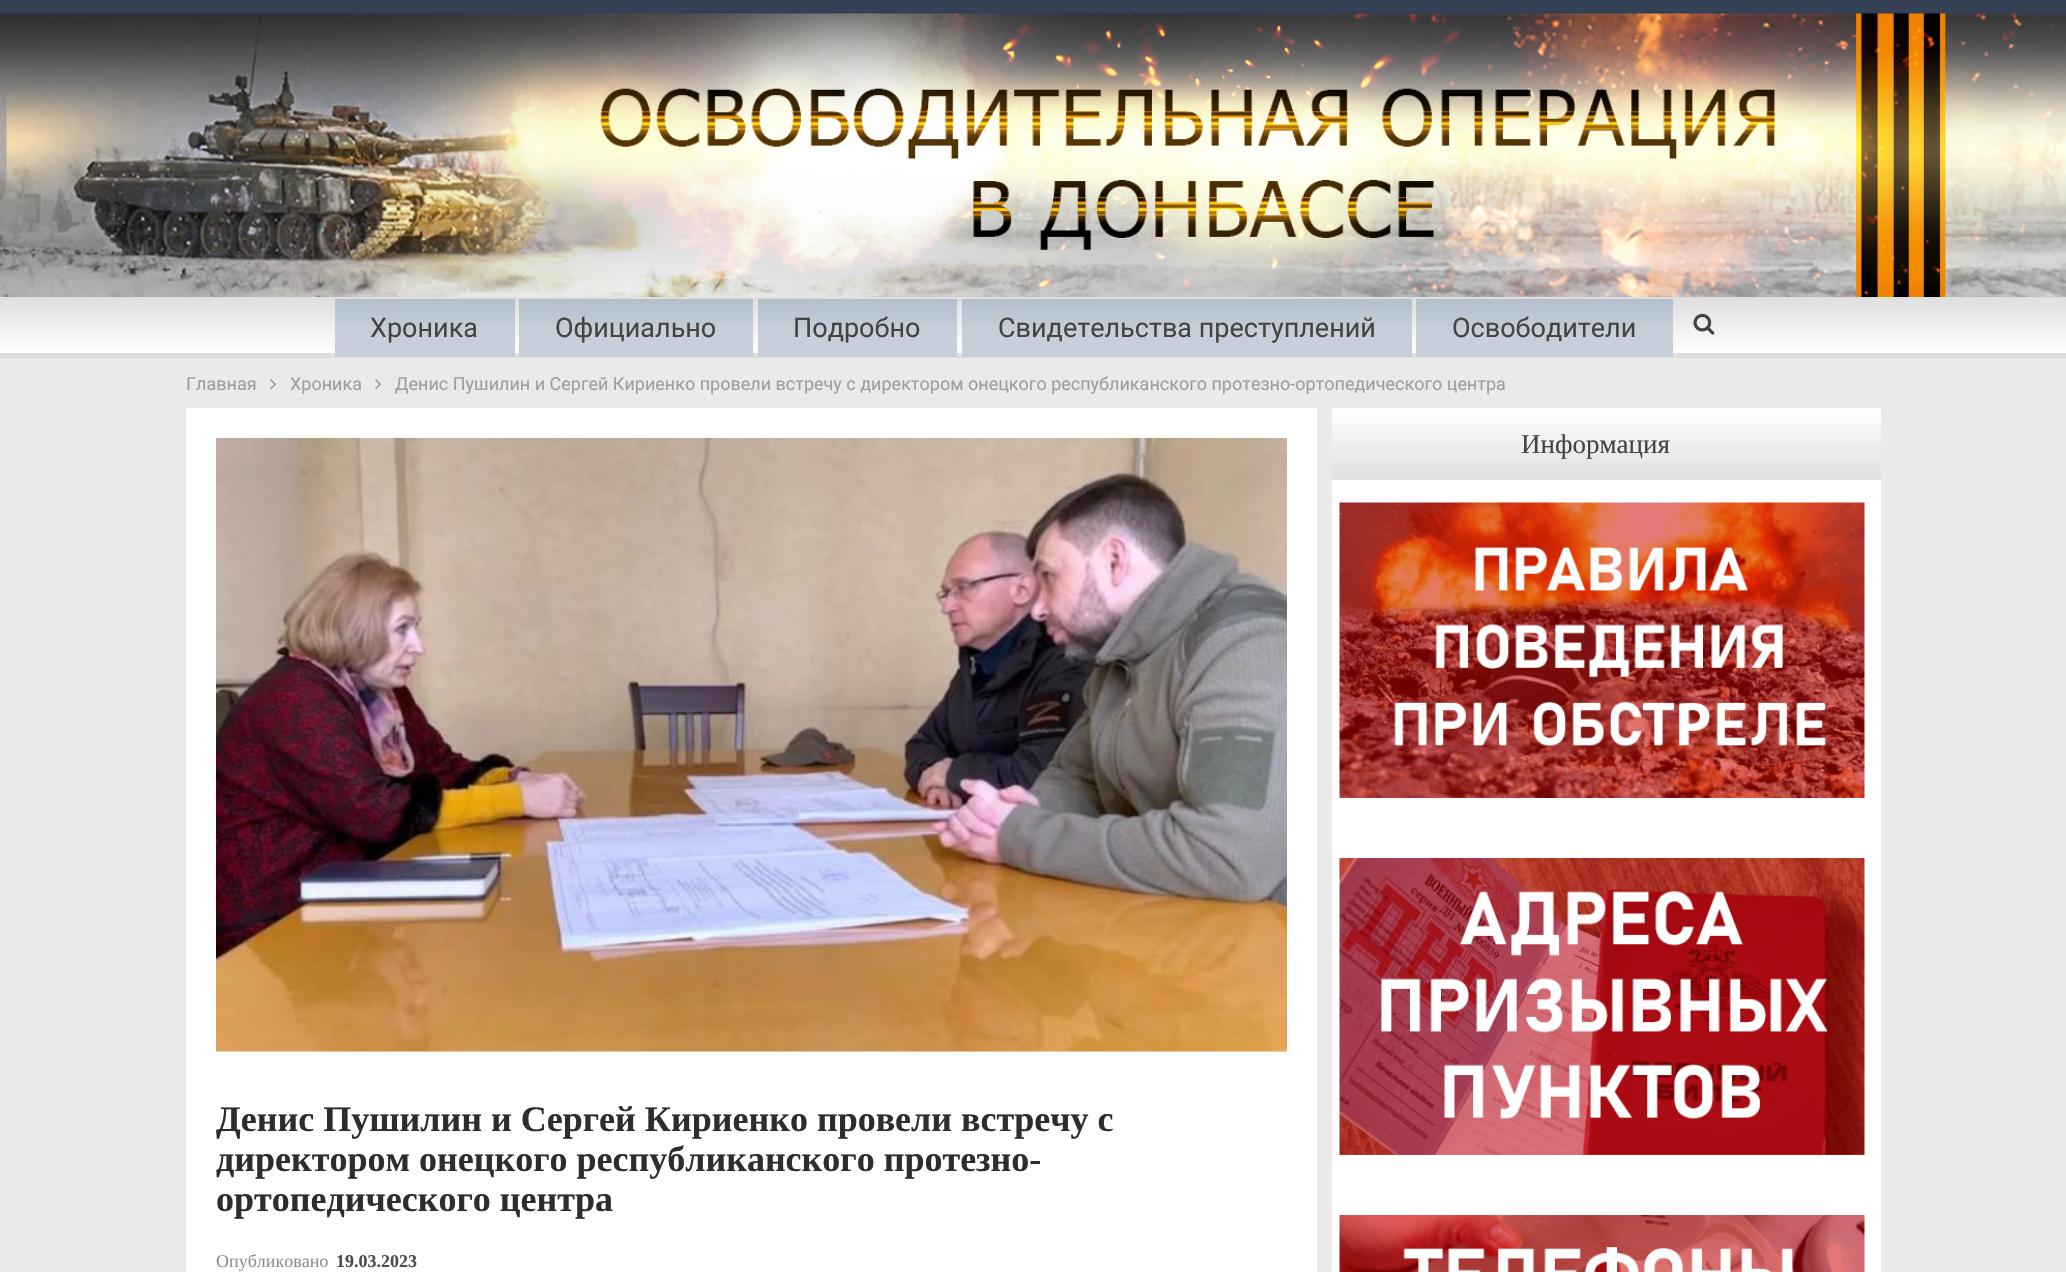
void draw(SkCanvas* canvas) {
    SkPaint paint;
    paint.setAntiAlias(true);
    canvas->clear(0xFFEAEAEA);
    paint.setColor(0xFF354256);
    canvas->drawRect(SkRect::MakeXYWH(0, 0, 2066, 12), paint);
    paint.setColor(0xFF313D50);
    canvas->drawRect(SkRect::MakeXYWH(0, 12, 2066, 2), paint);
    canvas->drawImageRect(SkImages::DeferredFromEncodedData(SkData::MakeFromFileName("img1.png")), SkRect::MakeXYWH(0, 13, 2066, 284), SkSamplingOptions());
    {
        const SkColor colors[] = {0xFFE1E1E1, 0xFFFFFFFF};
        const float stops[] = {0.06f, 1};
        const SkPoint ends[] = {{1034, 298}, {1034, 353}};
        paint.setShader(SkGradientShader::MakeLinear(ends, colors, stops, 2, SkTileMode::kClamp));
        paint.setAlpha(255);
    }
    canvas->drawRect(SkRect::MakeXYWH(0, 299, 2066, 54), paint);
    paint.setShader(nullptr);
    paint.setColor(0xFFDEDEDE);
    canvas->drawRect(SkRect::MakeXYWH(0, 297, 2066, 2), paint);
    canvas->drawRect(SkRect::MakeXYWH(0, 353, 2066, 5), paint);
    {
        const SkColor colors[] = {0xFFB3BFCC, 0xFFC7D0DA};
        const float stops[] = {0, 0.59f};
        const SkPoint ends[] = {{425, 299}, {425, 357}};
        paint.setShader(SkGradientShader::MakeLinear(ends, colors, stops, 2, SkTileMode::kClamp));
        paint.setAlpha(255);
    }
    canvas->drawRect(SkRect::MakeXYWH(335, 299, 180, 58), paint);
    SkFont font1(fontMgr->matchFamilyStyle("Roboto", SkFontStyle::Normal()), 27);
    font1.setSubpixel(true);
    paint.setShader(nullptr);
    paint.setColor(0xFF444444);
    canvas->drawString("Хроника", 370, 337, font1, paint);
    {
        const SkColor colors[] = {0xFFB3BFCC, 0xFFC7D0DA};
        const float stops[] = {0, 0.59f};
        const SkPoint ends[] = {{636, 299}, {636, 357}};
        paint.setShader(SkGradientShader::MakeLinear(ends, colors, stops, 2, SkTileMode::kClamp));
        paint.setAlpha(255);
    }
    canvas->drawRect(SkRect::MakeXYWH(519, 299, 234, 58), paint);
    paint.setShader(nullptr);
    paint.setColor(0xFF444444);
    canvas->drawString("Официально", 555, 337, font1, paint);
    {
        const SkColor colors[] = {0xFFB3BFCC, 0xFFC7D0DA};
        const float stops[] = {0, 0.59f};
        const SkPoint ends[] = {{857, 299}, {857, 357}};
        paint.setShader(SkGradientShader::MakeLinear(ends, colors, stops, 2, SkTileMode::kClamp));
        paint.setAlpha(255);
    }
    canvas->drawRect(SkRect::MakeXYWH(758, 299, 199, 58), paint);
    paint.setShader(nullptr);
    paint.setColor(0xFF444444);
    canvas->drawString("Подробно", 793, 337, font1, paint);
    {
        const SkColor colors[] = {0xFFB3BFCC, 0xFFC7D0DA};
        const float stops[] = {0, 0.59f};
        const SkPoint ends[] = {{1187, 298}, {1187, 357}};
        paint.setShader(SkGradientShader::MakeLinear(ends, colors, stops, 2, SkTileMode::kClamp));
        paint.setAlpha(255);
    }
    canvas->drawRect(SkRect::MakeXYWH(962, 299, 450, 58), paint);
    paint.setShader(nullptr);
    paint.setColor(0xFF444444);
    canvas->drawString("Свидетельства преступлений", 998, 337, font1, paint);
    {
        const SkColor colors[] = {0xFFB3BFCC, 0xFFC7D0DA};
        const float stops[] = {0, 0.59f};
        const SkPoint ends[] = {{1544, 299}, {1544, 357}};
        paint.setShader(SkGradientShader::MakeLinear(ends, colors, stops, 2, SkTileMode::kClamp));
        paint.setAlpha(255);
    }
    canvas->drawRect(SkRect::MakeXYWH(1416, 299, 257, 58), paint);
    paint.setShader(nullptr);
    paint.setColor(0xFF444444);
    canvas->drawString("Освободители", 1452, 337, font1, paint);
    canvas->drawImageRect(SkImages::DeferredFromEncodedData(SkData::MakeFromFileName("img2.png")), SkRect::MakeXYWH(1693, 313, 22, 22), SkSamplingOptions());
    SkFont font2(fontMgr->matchFamilyStyle("Roboto", SkFontStyle::Normal()), 18);
    font2.setSubpixel(true);
    paint.setColor(0xFF9E9E9E);
    canvas->drawString("Главная", 186, 390, font2, paint);
    canvas->drawImageRect(SkImages::DeferredFromEncodedData(SkData::MakeFromFileName("img3.png")), SkRect::MakeXYWH(270, 379, 6, 11), SkSamplingOptions());
    canvas->drawString("Хроника", 290, 390, font2, paint);
    canvas->drawImageRect(SkImages::DeferredFromEncodedData(SkData::MakeFromFileName("img3.png")), SkRect::MakeXYWH(375, 379, 6, 11), SkSamplingOptions());
    canvas->drawString("Денис Пушилин и Сергей Кириенко провели встречу с директором онецкого республиканского протезно-ортопедического центра", 395, 390, font2, paint);
    paint.setColor(0xFFFFFFFF);
    canvas->drawRect(SkRect::MakeXYWH(1332, 480, 549, 792), paint);
    {
        const SkColor colors[] = {0xFFFFFFFF, 0xFFE1E1E1};
        const float stops[] = {0, 0.94f};
        const SkPoint ends[] = {{1607, 408}, {1607, 480}};
        paint.setShader(SkGradientShader::MakeLinear(ends, colors, stops, 2, SkTileMode::kClamp));
        paint.setAlpha(255);
    }
    canvas->drawRect(SkRect::MakeXYWH(1332, 408, 549, 72), paint);
    SkFont font3(fontMgr->matchFamilyStyle("Liberation Serif", SkFontStyle::Normal()), 27);
    font3.setSubpixel(true);
    paint.setShader(nullptr);
    paint.setColor(0xFF444444);
    canvas->drawString("Информация", 1521, 453, font3, paint);
    canvas->drawImageRect(SkImages::DeferredFromEncodedData(SkData::MakeFromFileName("img4.png")), SkRect::MakeXYWH(1339, 502, 526, 296), SkSamplingOptions());
    canvas->drawImageRect(SkImages::DeferredFromEncodedData(SkData::MakeFromFileName("img5.png")), SkRect::MakeXYWH(1339, 858, 526, 297), SkSamplingOptions());
    canvas->drawImageRect(SkImages::DeferredFromEncodedData(SkData::MakeFromFileName("img6.png")), SkRect::MakeXYWH(1339, 1215, 526, 57), SkSamplingOptions());
    paint.setColor(0xFFFFFFFF);
    canvas->drawRect(SkRect::MakeXYWH(186, 408, 1131, 864), paint);
    canvas->drawImageRect(SkImages::DeferredFromEncodedData(SkData::MakeFromFileName("img7.png")), SkRect::MakeXYWH(216, 438, 1071, 614), SkSamplingOptions());
    SkFont font4(fontMgr->matchFamilyStyle("Liberation Serif", SkFontStyle::Bold()), 36);
    font4.setSubpixel(true);
    paint.setColor(0xFF2D2D2D);
    canvas->drawString("Денис Пушилин и Сергей Кириенко провели встречу с", 216, 1131, font4, paint);
    canvas->drawString("директором онецкого республиканского протезно-", 216, 1171, font4, paint);
    canvas->drawString("ортопедического центра", 216, 1211, font4, paint);
    SkFont font5(fontMgr->matchFamilyStyle("Liberation Serif", SkFontStyle::Normal()), 18);
    font5.setSubpixel(true);
    paint.setColor(0xFF8F8F8F);
    canvas->drawString("Опубликовано", 216, 1267, font5, paint);
    SkFont font6(fontMgr->matchFamilyStyle("Liberation Serif", SkFontStyle::Bold()), 18);
    font6.setSubpixel(true);
    paint.setColor(0xFF4D4D4D);
    canvas->drawString("19.03.2023", 336, 1267, font6, paint);
}
